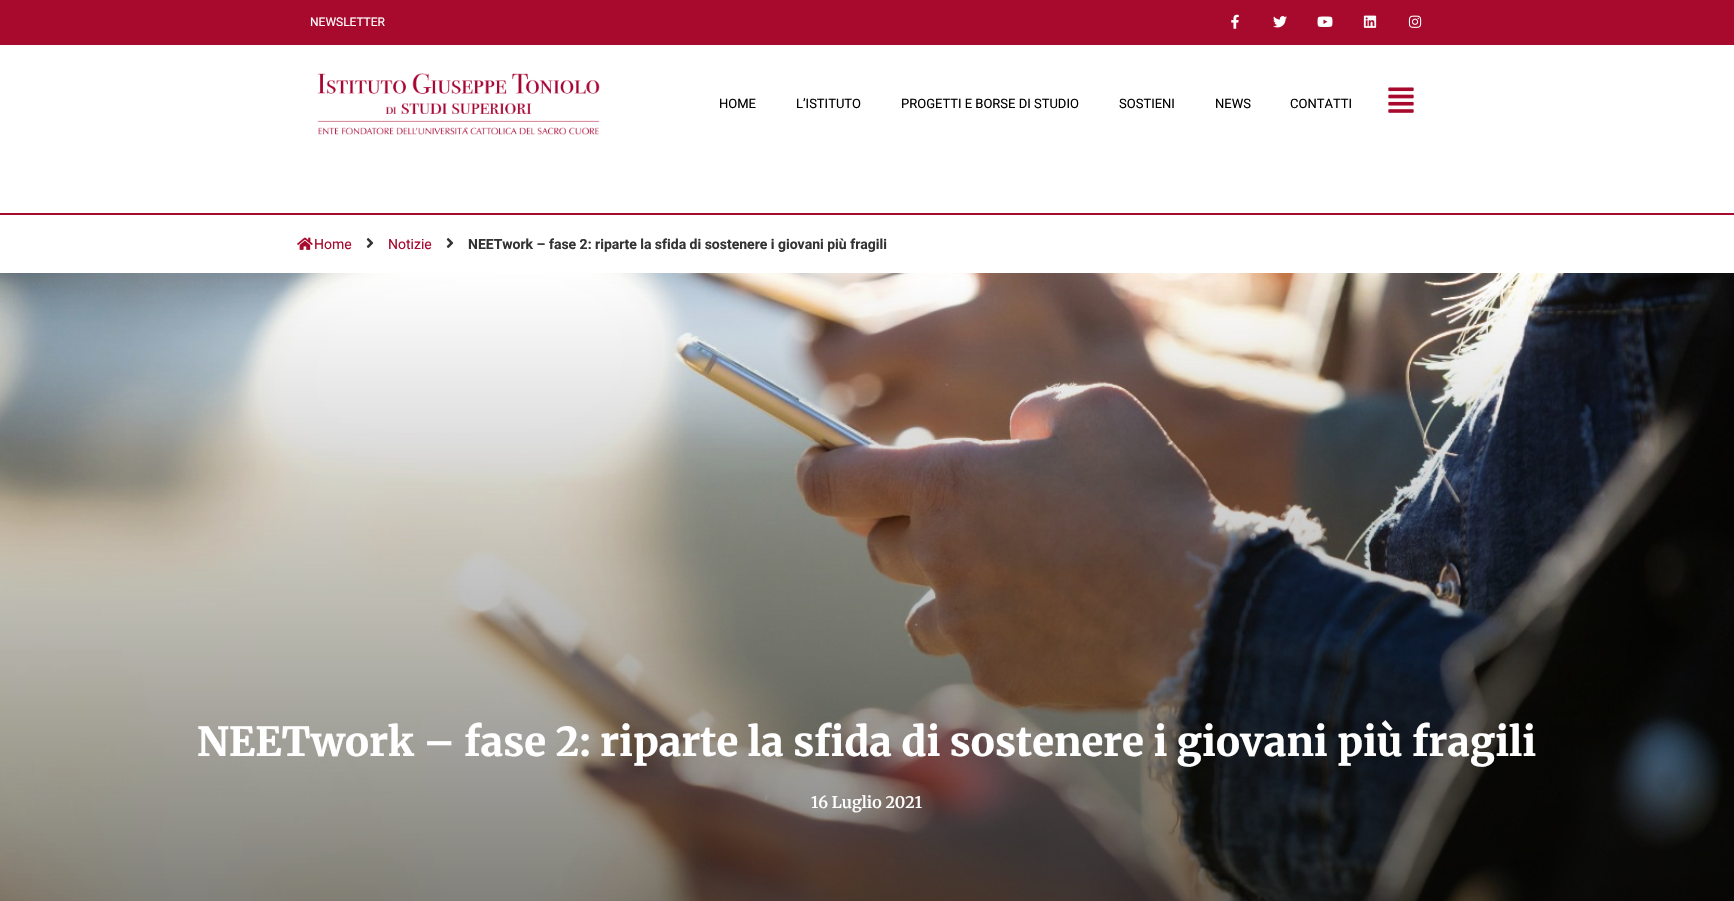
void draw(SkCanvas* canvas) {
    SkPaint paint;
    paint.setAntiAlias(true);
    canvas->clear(0xFFFFFFFF);
    paint.setColor(0xFFA70A2D);
    canvas->drawRect(SkRect::MakeXYWH(0, 0, 1734, 45), paint);
    SkFont font1(fontMgr->matchFamilyStyle("Roboto", SkFontStyle::Normal()), 12);
    font1.setSubpixel(true);
    paint.setColor(0xFFFFFFFF);
    canvas->drawString("NEWSLETTER", 310, 26, font1, paint);
    canvas->drawImageRect(SkImages::DeferredFromEncodedData(SkData::MakeFromFileName("img1.png")), SkRect::MakeXYWH(1231, 14, 8, 15), SkSamplingOptions());
    canvas->drawImageRect(SkImages::DeferredFromEncodedData(SkData::MakeFromFileName("img2.png")), SkRect::MakeXYWH(1273, 16, 14, 12), SkSamplingOptions());
    canvas->drawImageRect(SkImages::DeferredFromEncodedData(SkData::MakeFromFileName("img3.png")), SkRect::MakeXYWH(1317, 16, 16, 11), SkSamplingOptions());
    canvas->drawImageRect(SkImages::DeferredFromEncodedData(SkData::MakeFromFileName("img4.png")), SkRect::MakeXYWH(1363, 15, 14, 13), SkSamplingOptions());
    canvas->drawImageRect(SkImages::DeferredFromEncodedData(SkData::MakeFromFileName("img5.png")), SkRect::MakeXYWH(1408, 15, 14, 13), SkSamplingOptions());
    paint.setColor(0xFFA70A2D);
    canvas->drawRect(SkRect::MakeXYWH(0, 213, 1734, 2), paint);
    canvas->drawImageRect(SkImages::DeferredFromEncodedData(SkData::MakeFromFileName("img6.png")), SkRect::MakeXYWH(317, 73, 283, 62), SkSamplingOptions());
    SkFont font2(fontMgr->matchFamilyStyle("Roboto", SkFontStyle::Normal()), 13);
    font2.setSubpixel(true);
    paint.setColor(0xFF000000);
    canvas->drawString("HOME", 719, 108, font2, paint);
    canvas->drawString("L’ISTITUTO", 796, 108, font2, paint);
    canvas->drawString("PROGETTI E BORSE DI STUDIO", 901, 108, font2, paint);
    canvas->drawString("SOSTIENI", 1119, 108, font2, paint);
    canvas->drawString("NEWS", 1215, 108, font2, paint);
    canvas->drawString("CONTATTI", 1290, 108, font2, paint);
    canvas->drawImageRect(SkImages::DeferredFromEncodedData(SkData::MakeFromFileName("img7.png")), SkRect::MakeXYWH(1388, 87, 26, 26), SkSamplingOptions());
    canvas->drawImageRect(SkImages::DeferredFromEncodedData(SkData::MakeFromFileName("img8.png")), SkRect::MakeXYWH(297, 237, 16, 13), SkSamplingOptions());
    SkFont font3(fontMgr->matchFamilyStyle("Roboto", SkFontStyle::Normal()), 14);
    font3.setSubpixel(true);
    paint.setColor(0xFFA70A2D);
    canvas->drawString("Home", 314, 249, font3, paint);
    canvas->drawImageRect(SkImages::DeferredFromEncodedData(SkData::MakeFromFileName("img9.png")), SkRect::MakeXYWH(366, 238, 8, 10), SkSamplingOptions());
    canvas->drawString("Notizie", 388, 249, font3, paint);
    canvas->drawImageRect(SkImages::DeferredFromEncodedData(SkData::MakeFromFileName("img9.png")), SkRect::MakeXYWH(446, 238, 8, 10), SkSamplingOptions());
    SkFont font4(fontMgr->matchFamilyStyle("Roboto", SkFontStyle::Bold()), 14);
    font4.setSubpixel(true);
    paint.setColor(0xFF333333);
    canvas->drawString("NEETwork – fase 2: riparte la sfida di sostenere i giovani più fragili", 468, 249, font4, paint);
    canvas->drawImageRect(SkImages::DeferredFromEncodedData(SkData::MakeFromFileName("img10.png")), SkRect::MakeXYWH(0, 273, 1734, 628), SkSamplingOptions());
    SkFont font5(fontMgr->matchFamilyStyle("Merriweather", SkFontStyle(800, SkFontStyle::kNormal_Width, SkFontStyle::kUpright_Slant)), 40);
    font5.setSubpixel(true);
    paint.setColor(0xFFFFFFFF);
    canvas->drawString("NEETwork – fase 2: riparte la sfida di sostenere i giovani più fragili", 197, 756, font5, paint);
    SkFont font6(fontMgr->matchFamilyStyle("Merriweather", SkFontStyle(600, SkFontStyle::kNormal_Width, SkFontStyle::kUpright_Slant)), 16);
    font6.setSubpixel(true);
    canvas->drawString("16 Luglio 2021", 811, 808, font6, paint);
}
